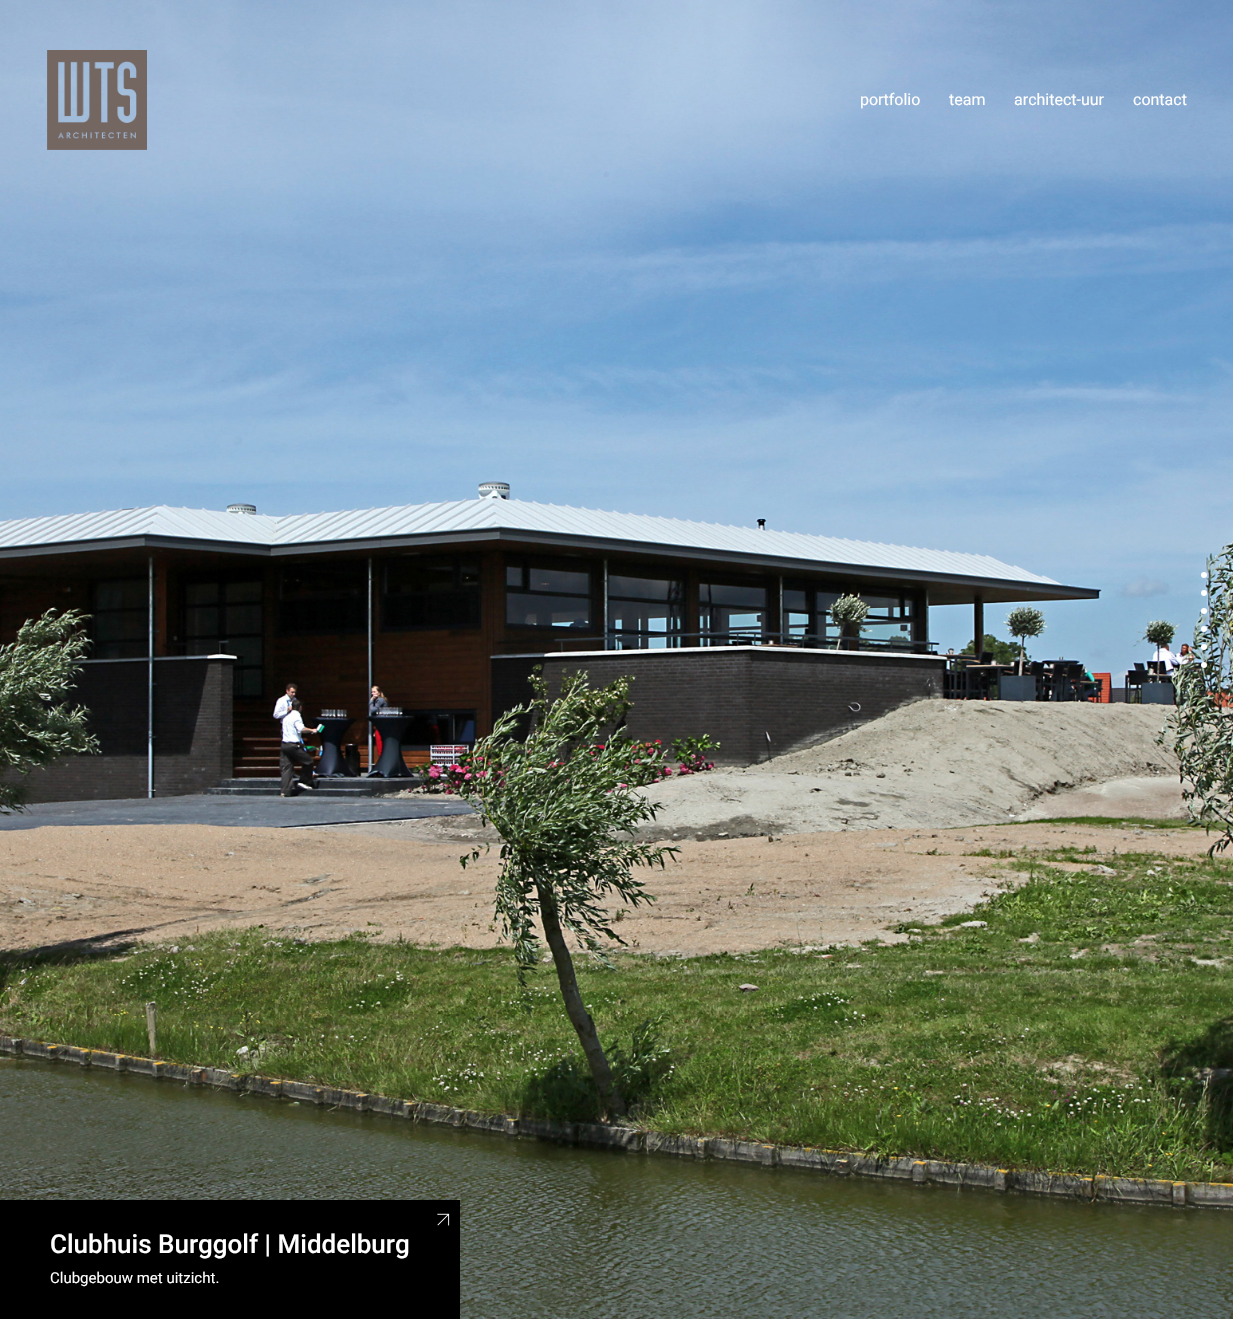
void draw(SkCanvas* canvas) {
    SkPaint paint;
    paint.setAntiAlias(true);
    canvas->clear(0xFFFFFFFF);
    canvas->drawImageRect(SkImages::DeferredFromEncodedData(SkData::MakeFromFileName("img1.png")), SkRect::MakeXYWH(0, 0, 1233, 1319), SkSamplingOptions());
    canvas->drawImageRect(SkImages::DeferredFromEncodedData(SkData::MakeFromFileName("img2.png")), SkRect::MakeXYWH(47, 50, 100, 100), SkSamplingOptions());
    SkFont font1(fontMgr->matchFamilyStyle("Roboto", SkFontStyle::Normal()), 16);
    font1.setSubpixel(true);
    paint.setColor(0xFFFFFFFF);
    canvas->drawString("portfolio", 860, 105, font1, paint);
    canvas->drawString("team", 949, 105, font1, paint);
    canvas->drawString("architect-uur", 1014, 105, font1, paint);
    canvas->drawString("contact", 1133, 105, font1, paint);
    canvas->drawCircle(1204, 575, 3, paint);
    canvas->drawCircle(1204, 593, 3, paint);
    canvas->drawCircle(1204, 611, 3, paint);
    canvas->drawCircle(1204, 629, 3, paint);
    canvas->drawCircle(1204, 647, 3, paint);
    canvas->drawCircle(1204, 665, 3, paint);
    paint.setColor(0xFF000000);
    canvas->drawRect(SkRect::MakeXYWH(0, 1200, 460, 119), paint);
    canvas->drawImageRect(SkImages::DeferredFromEncodedData(SkData::MakeFromFileName("img3.png")), SkRect::MakeXYWH(437, 1213, 13, 13), SkSamplingOptions());
    SkFont font2(fontMgr->matchFamilyStyle("Roboto", SkFontStyle(500, SkFontStyle::kNormal_Width, SkFontStyle::kUpright_Slant)), 26);
    font2.setSubpixel(true);
    paint.setColor(0xFFFFFFFF);
    canvas->drawString("Clubhuis Burggolf | Middelburg", 50, 1253, font2, paint);
    SkFont font3(fontMgr->matchFamilyStyle("Roboto", SkFontStyle::Normal()), 15);
    font3.setSubpixel(true);
    canvas->drawString("Clubgebouw met uitzicht.", 50, 1283, font3, paint);
}
